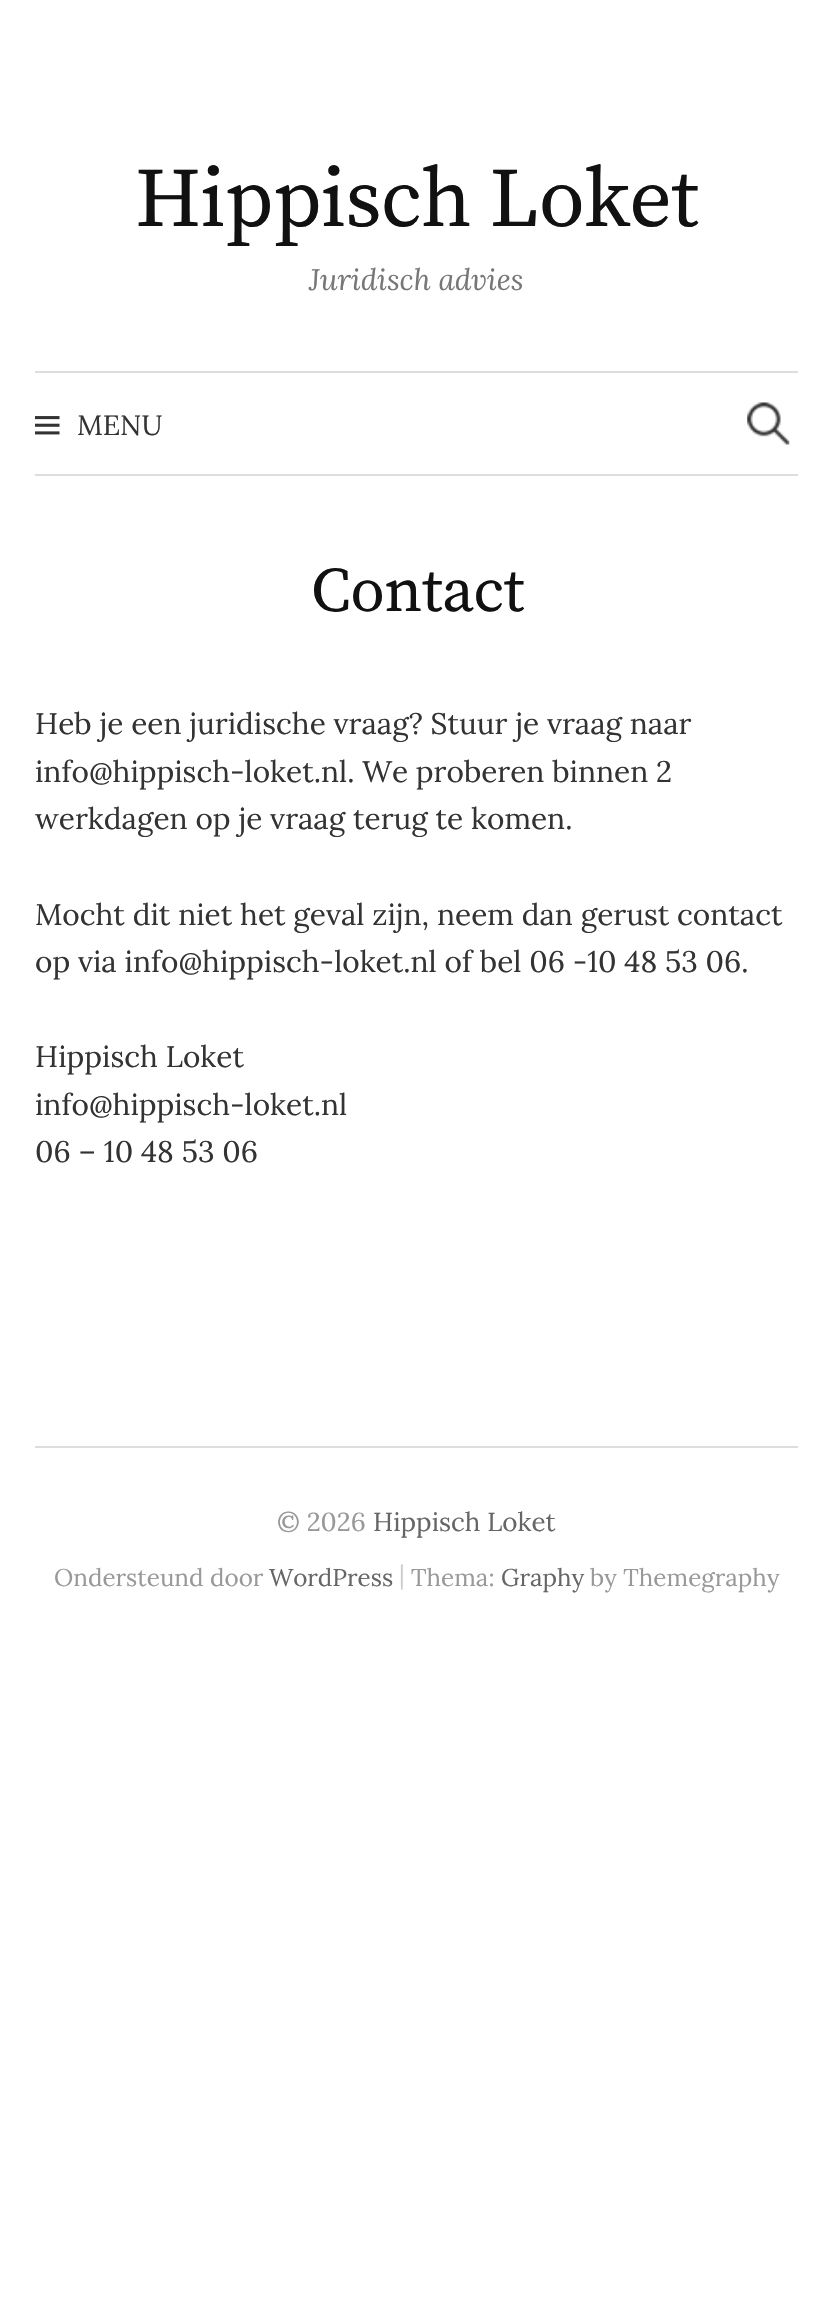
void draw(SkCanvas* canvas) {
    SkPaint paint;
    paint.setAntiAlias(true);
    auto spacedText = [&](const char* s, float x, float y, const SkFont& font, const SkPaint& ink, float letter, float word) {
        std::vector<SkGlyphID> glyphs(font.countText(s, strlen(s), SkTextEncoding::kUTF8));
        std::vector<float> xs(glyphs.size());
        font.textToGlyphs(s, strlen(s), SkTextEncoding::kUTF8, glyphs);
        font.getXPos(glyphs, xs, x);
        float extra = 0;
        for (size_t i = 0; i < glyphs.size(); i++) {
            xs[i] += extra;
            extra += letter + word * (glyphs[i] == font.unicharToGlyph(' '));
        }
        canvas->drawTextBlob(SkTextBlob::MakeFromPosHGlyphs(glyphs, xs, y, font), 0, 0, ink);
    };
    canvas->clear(0xFFFFFFFF);
    SkFont font1(fontMgr->matchFamilyStyle("Source Serif Pro", SkFontStyle::Normal()), 84);
    font1.setSubpixel(true);
    paint.setColor(0xFF111111);
    spacedText("Hippisch Loket", 135, 226, font1, paint, -0.8f, 0);
    SkFont font2(fontMgr->matchFamilyStyle("Lora", SkFontStyle::Italic()), 29.75f);
    font2.setSubpixel(true);
    paint.setColor(0xFF777777);
    canvas->drawString("Juridisch advies", 309, 290, font2, paint);
    paint.setColor(0xFFDDDDDD);
    canvas->drawRect(SkRect::MakeXYWH(35, 371, 763, 2), paint);
    canvas->drawRect(SkRect::MakeXYWH(35, 474, 763, 2), paint);
    canvas->drawImageRect(SkImages::DeferredFromEncodedData(SkData::MakeFromFileName("img1.png")), SkRect::MakeXYWH(35, 416, 25, 19), SkSamplingOptions());
    SkFont font3(fontMgr->matchFamilyStyle("Lora", SkFontStyle::Normal()), 28);
    font3.setSubpixel(true);
    paint.setColor(0xFF333333);
    canvas->drawString("MENU", 77, 435, font3, paint);
    canvas->drawImageRect(SkImages::DeferredFromEncodedData(SkData::MakeFromFileName("img2.png")), SkRect::MakeXYWH(747, 402, 43, 43), SkSamplingOptions());
    SkFont font4(fontMgr->matchFamilyStyle("Source Serif Pro", SkFontStyle::Normal()), 63);
    font4.setSubpixel(true);
    paint.setColor(0xFF111111);
    spacedText("Contact", 311, 611, font4, paint, -0.5f, 0);
    SkFont font5(fontMgr->matchFamilyStyle("Lora", SkFontStyle::Normal()), 29.75f);
    font5.setSubpixel(true);
    paint.setColor(0xFF333333);
    canvas->drawString("Heb je een juridische vraag? Stuur je vraag naar", 35, 734, font5, paint);
    canvas->drawString("info@hippisch-loket.nl. We proberen binnen 2", 35, 782, font5, paint);
    canvas->drawString("werkdagen op je vraag terug te komen.", 35, 829, font5, paint);
    canvas->drawString("Mocht dit niet het geval zijn, neem dan gerust contact", 35, 925, font5, paint);
    canvas->drawString("op via info@hippisch-loket.nl of bel 06 -10 48 53 06.", 35, 972, font5, paint);
    canvas->drawString("Hippisch Loket", 35, 1067, font5, paint);
    canvas->drawString("info@hippisch-loket.nl", 35, 1115, font5, paint);
    canvas->drawString("06 – 10 48 53 06", 35, 1162, font5, paint);
    paint.setColor(0xFFDDDDDD);
    canvas->drawRect(SkRect::MakeXYWH(35, 1446, 763, 2), paint);
    SkFont font6(fontMgr->matchFamilyStyle("Lora", SkFontStyle::Normal()), 26);
    font6.setSubpixel(true);
    paint.setColor(0xFF999999);
    canvas->drawString("© 2026", 277, 1531, font6, paint);
    paint.setColor(0xFF666666);
    canvas->drawString("Hippisch Loket", 373, 1531, font6, paint);
    SkFont font7(fontMgr->matchFamilyStyle("Lora", SkFontStyle::Normal()), 24.25f);
    font7.setSubpixel(true);
    paint.setColor(0xFF999999);
    canvas->drawString("Ondersteund door", 54, 1586, font7, paint);
    paint.setColor(0xFF666666);
    canvas->drawString("WordPress", 269, 1586, font7, paint);
    paint.setColor(0xFFCCCCCC);
    canvas->drawString("|", 399, 1583, font7, paint);
    paint.setColor(0xFF999999);
    canvas->drawString("Thema:", 411, 1586, font7, paint);
    paint.setColor(0xFF666666);
    canvas->drawString("Graphy", 501, 1586, font7, paint);
    paint.setColor(0xFF999999);
    canvas->drawString("by Themegraphy", 590, 1586, font7, paint);
}
